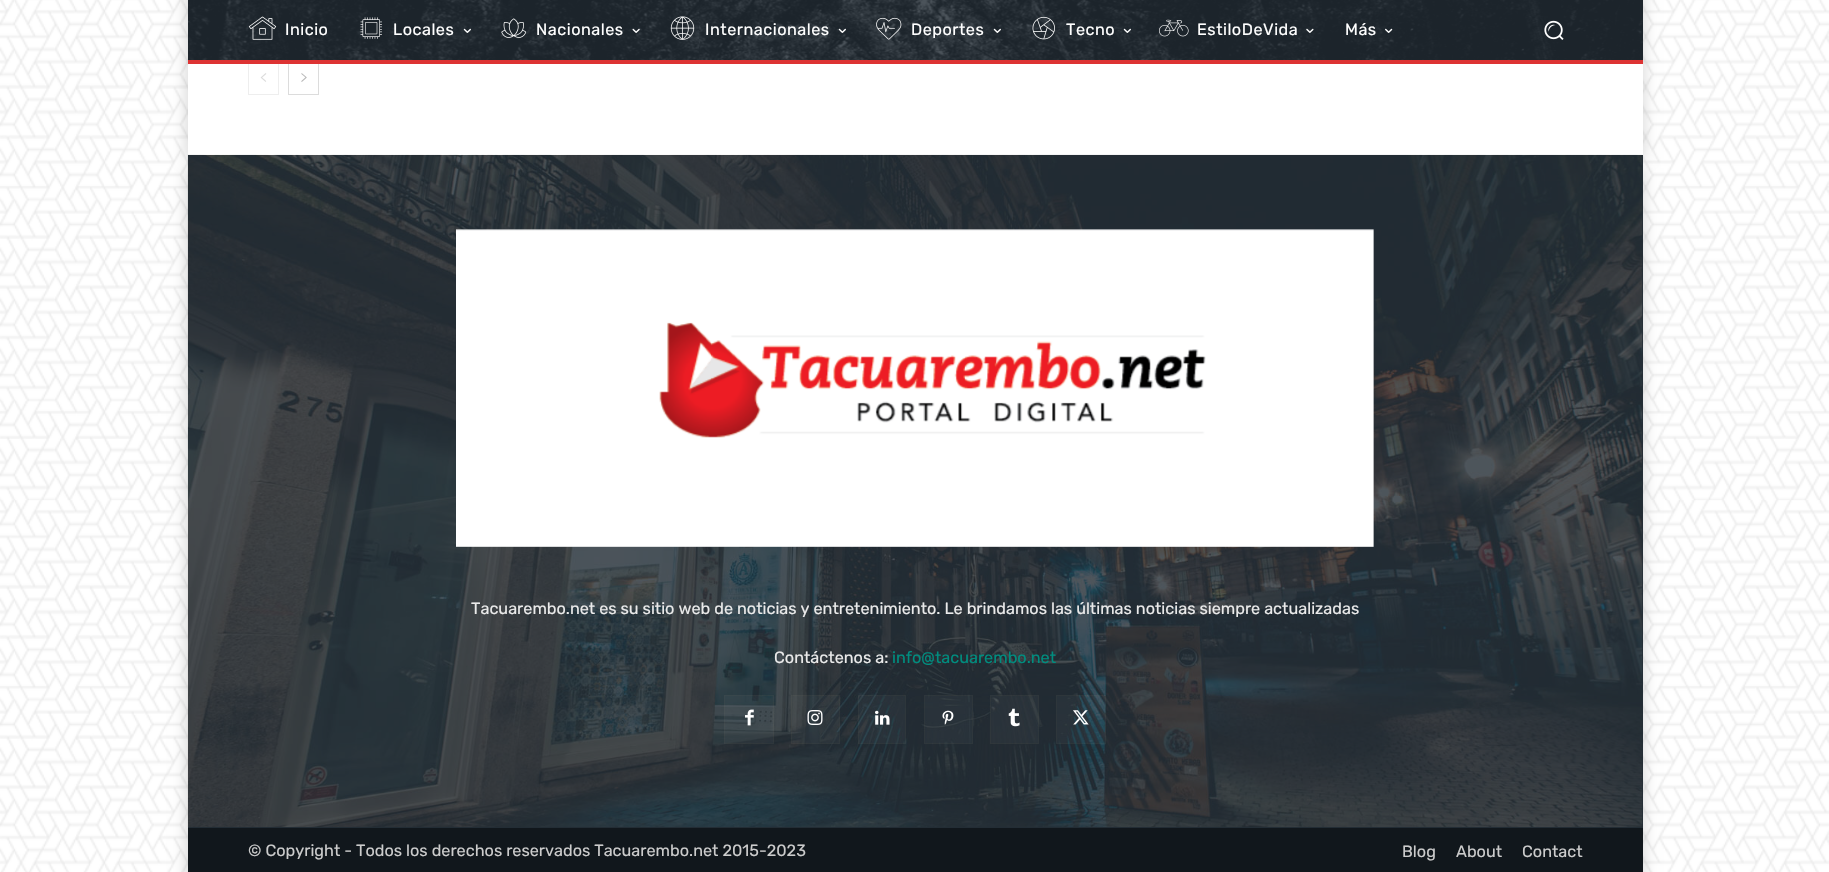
void draw(SkCanvas* canvas) {
    SkPaint paint;
    paint.setAntiAlias(true);
    auto spacedText = [&](const char* s, float x, float y, const SkFont& font, const SkPaint& ink, float letter, float word) {
        std::vector<SkGlyphID> glyphs(font.countText(s, strlen(s), SkTextEncoding::kUTF8));
        std::vector<float> xs(glyphs.size());
        font.textToGlyphs(s, strlen(s), SkTextEncoding::kUTF8, glyphs);
        font.getXPos(glyphs, xs, x);
        float extra = 0;
        for (size_t i = 0; i < glyphs.size(); i++) {
            xs[i] += extra;
            extra += letter + word * (glyphs[i] == font.unicharToGlyph(' '));
        }
        canvas->drawTextBlob(SkTextBlob::MakeFromPosHGlyphs(glyphs, xs, y, font), 0, 0, ink);
    };
    canvas->clear(0xFFFFFFFF);
    canvas->drawImageRect(SkImages::DeferredFromEncodedData(SkData::MakeFromFileName("img1.png")), SkRect::MakeXYWH(0, 0, 1829, 872), SkSamplingOptions());
    paint.setColor(0x1F000000);
    paint.setMaskFilter(SkMaskFilter::MakeBlur(kNormal_SkBlurStyle, 6));
    canvas->drawRect(SkRect::MakeXYWH(184, -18, 1462, 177), paint);
    paint.setMaskFilter(nullptr);
    paint.setColor(0xFFFFFFFF);
    canvas->drawRect(SkRect::MakeXYWH(188, 64, 1455, 91), paint);
    paint.setStyle(SkPaint::kStroke_Style);
    paint.setStrokeWidth(1);
    paint.setColor(0xFFEEEEEE);
    canvas->drawRect(SkRect::MakeXYWH(248.5f, 63.5f, 30, 31), paint);
    canvas->drawImageRect(SkImages::DeferredFromEncodedData(SkData::MakeFromFileName("img2.png")), SkRect::MakeXYWH(260, 73, 7, 9), SkSamplingOptions());
    paint.setColor(0xFFDCDCDC);
    canvas->drawRect(SkRect::MakeXYWH(288.5f, 63.5f, 30, 31), paint);
    canvas->drawImageRect(SkImages::DeferredFromEncodedData(SkData::MakeFromFileName("img3.png")), SkRect::MakeXYWH(301, 73, 6, 9), SkSamplingOptions());
    paint.setStyle(SkPaint::kFill_Style);
    paint.setColor(0xFF232D35);
    canvas->drawRect(SkRect::MakeXYWH(188, 0, 1455, 60), paint);
    canvas->drawImageRect(SkImages::DeferredFromEncodedData(SkData::MakeFromFileName("img4.png")), SkRect::MakeXYWH(188, 0, 1455, 60), SkSamplingOptions());
    canvas->drawImageRect(SkImages::DeferredFromEncodedData(SkData::MakeFromFileName("img5.png")), SkRect::MakeXYWH(248, 16, 29, 24), SkSamplingOptions());
    SkFont font1(fontMgr->matchFamilyStyle("Rubik", SkFontStyle::Normal()), 16.25f);
    font1.setSubpixel(true);
    paint.setColor(0xFFFFFFFF);
    spacedText("Inicio", 285, 35, font1, paint, 0.5f, 0);
    canvas->drawImageRect(SkImages::DeferredFromEncodedData(SkData::MakeFromFileName("img6.png")), SkRect::MakeXYWH(360, 17, 22, 22), SkSamplingOptions());
    spacedText("Locales", 393, 35, font1, paint, 0.5f, 0);
    canvas->drawImageRect(SkImages::DeferredFromEncodedData(SkData::MakeFromFileName("img7.png")), SkRect::MakeXYWH(463, 28, 8, 5), SkSamplingOptions());
    canvas->drawImageRect(SkImages::DeferredFromEncodedData(SkData::MakeFromFileName("img8.png")), SkRect::MakeXYWH(501, 18, 26, 20), SkSamplingOptions());
    spacedText("Nacionales", 536, 35, font1, paint, 0.5f, 0);
    canvas->drawImageRect(SkImages::DeferredFromEncodedData(SkData::MakeFromFileName("img9.png")), SkRect::MakeXYWH(632, 28, 8, 5), SkSamplingOptions());
    canvas->drawImageRect(SkImages::DeferredFromEncodedData(SkData::MakeFromFileName("img10.png")), SkRect::MakeXYWH(670, 16, 25, 24), SkSamplingOptions());
    spacedText("Internacionales", 705, 35, font1, paint, 0.5f, 0);
    canvas->drawImageRect(SkImages::DeferredFromEncodedData(SkData::MakeFromFileName("img11.png")), SkRect::MakeXYWH(838, 28, 8, 5), SkSamplingOptions());
    canvas->drawImageRect(SkImages::DeferredFromEncodedData(SkData::MakeFromFileName("img12.png")), SkRect::MakeXYWH(876, 17, 26, 23), SkSamplingOptions());
    spacedText("Deportes", 911, 35, font1, paint, 0.5f, 0);
    canvas->drawImageRect(SkImages::DeferredFromEncodedData(SkData::MakeFromFileName("img13.png")), SkRect::MakeXYWH(993, 28, 8, 5), SkSamplingOptions());
    canvas->drawImageRect(SkImages::DeferredFromEncodedData(SkData::MakeFromFileName("img14.png")), SkRect::MakeXYWH(1032, 16, 23, 24), SkSamplingOptions());
    spacedText("Tecno", 1066, 35, font1, paint, 0.5f, 0);
    canvas->drawImageRect(SkImages::DeferredFromEncodedData(SkData::MakeFromFileName("img15.png")), SkRect::MakeXYWH(1123, 28, 8, 5), SkSamplingOptions());
    canvas->drawImageRect(SkImages::DeferredFromEncodedData(SkData::MakeFromFileName("img16.png")), SkRect::MakeXYWH(1159, 19, 30, 18), SkSamplingOptions());
    spacedText("EstiloDeVida", 1197, 35, font1, paint, 0.5f, 0);
    canvas->drawImageRect(SkImages::DeferredFromEncodedData(SkData::MakeFromFileName("img17.png")), SkRect::MakeXYWH(1306, 28, 8, 5), SkSamplingOptions());
    spacedText("Más", 1345, 35, font1, paint, 0.5f, 0);
    canvas->drawImageRect(SkImages::DeferredFromEncodedData(SkData::MakeFromFileName("img18.png")), SkRect::MakeXYWH(1385, 28, 8, 5), SkSamplingOptions());
    canvas->drawImageRect(SkImages::DeferredFromEncodedData(SkData::MakeFromFileName("img19.png")), SkRect::MakeXYWH(1544, 20, 20, 20), SkSamplingOptions());
    paint.setColor(0xFFDD3333);
    canvas->drawRect(SkRect::MakeXYWH(188, 60, 1455, 4), paint);
    paint.setColor(0x1F000000);
    paint.setMaskFilter(SkMaskFilter::MakeBlur(kNormal_SkBlurStyle, 6));
    canvas->drawRect(SkRect::MakeXYWH(184, 168, 1462, 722), paint);
    paint.setMaskFilter(nullptr);
    paint.setColor(0xFF232D35);
    canvas->drawRect(SkRect::MakeXYWH(188, 155, 1455, 673), paint);
    canvas->drawImageRect(SkImages::DeferredFromEncodedData(SkData::MakeFromFileName("img20.png")), SkRect::MakeXYWH(187, 154, 1456, 673), SkSamplingOptions());
    canvas->drawImageRect(SkImages::DeferredFromEncodedData(SkData::MakeFromFileName("img21.png")), SkRect::MakeXYWH(456, 229, 918, 318), SkSamplingOptions());
    paint.setColor(0xFFEAEAEA);
    canvas->drawString("Tacuarembo.net es su sitio web de noticias y entretenimiento. Le brindamos las últimas noticias siempre actualizadas", 471, 614, font1, paint);
    canvas->drawString("Contáctenos a:", 774, 663, font1, paint);
    paint.setColor(0xFF008D7F);
    canvas->drawString("info@tacuarembo.net", 892, 663, font1, paint);
    paint.setColor(0x08FFFFFF);
    canvas->drawRect(SkRect::MakeXYWH(724, 695, 50, 49), paint);
    paint.setStyle(SkPaint::kStroke_Style);
    paint.setColor(0x08CB9558);
    canvas->drawRect(SkRect::MakeXYWH(724.5f, 695.5f, 49, 48), paint);
    canvas->drawImageRect(SkImages::DeferredFromEncodedData(SkData::MakeFromFileName("img22.png")), SkRect::MakeXYWH(745, 709, 9, 17), SkSamplingOptions());
    paint.setStyle(SkPaint::kFill_Style);
    paint.setColor(0x08FFFFFF);
    canvas->drawRect(SkRect::MakeXYWH(791, 695, 49, 49), paint);
    paint.setStyle(SkPaint::kStroke_Style);
    paint.setColor(0x08CB9558);
    canvas->drawRect(SkRect::MakeXYWH(791.5f, 695.5f, 48, 48), paint);
    canvas->drawImageRect(SkImages::DeferredFromEncodedData(SkData::MakeFromFileName("img23.png")), SkRect::MakeXYWH(807, 710, 16, 15), SkSamplingOptions());
    paint.setStyle(SkPaint::kFill_Style);
    paint.setColor(0x08FFFFFF);
    canvas->drawRect(SkRect::MakeXYWH(858, 695, 48, 49), paint);
    paint.setStyle(SkPaint::kStroke_Style);
    paint.setColor(0x08CB9558);
    canvas->drawRect(SkRect::MakeXYWH(858.5f, 695.5f, 47, 48), paint);
    canvas->drawImageRect(SkImages::DeferredFromEncodedData(SkData::MakeFromFileName("img24.png")), SkRect::MakeXYWH(875, 710, 15, 15), SkSamplingOptions());
    paint.setStyle(SkPaint::kFill_Style);
    paint.setColor(0x08FFFFFF);
    canvas->drawRect(SkRect::MakeXYWH(924, 695, 49, 49), paint);
    paint.setStyle(SkPaint::kStroke_Style);
    paint.setColor(0x08CB9558);
    canvas->drawRect(SkRect::MakeXYWH(924.5f, 695.5f, 48, 48), paint);
    canvas->drawImageRect(SkImages::DeferredFromEncodedData(SkData::MakeFromFileName("img25.png")), SkRect::MakeXYWH(942, 710, 12, 15), SkSamplingOptions());
    paint.setStyle(SkPaint::kFill_Style);
    paint.setColor(0x08FFFFFF);
    canvas->drawRect(SkRect::MakeXYWH(990, 695, 49, 49), paint);
    paint.setStyle(SkPaint::kStroke_Style);
    paint.setColor(0x08CB9558);
    canvas->drawRect(SkRect::MakeXYWH(990.5f, 695.5f, 48, 48), paint);
    canvas->drawImageRect(SkImages::DeferredFromEncodedData(SkData::MakeFromFileName("img26.png")), SkRect::MakeXYWH(1008, 708, 12, 19), SkSamplingOptions());
    paint.setStyle(SkPaint::kFill_Style);
    paint.setColor(0x08FFFFFF);
    canvas->drawRect(SkRect::MakeXYWH(1056, 695, 50, 49), paint);
    paint.setStyle(SkPaint::kStroke_Style);
    paint.setColor(0x08CB9558);
    canvas->drawRect(SkRect::MakeXYWH(1056.5f, 695.5f, 49, 48), paint);
    canvas->drawImageRect(SkImages::DeferredFromEncodedData(SkData::MakeFromFileName("img27.png")), SkRect::MakeXYWH(1073, 710, 16, 15), SkSamplingOptions());
    paint.setStyle(SkPaint::kFill_Style);
    paint.setColor(0xFF11171C);
    canvas->drawRect(SkRect::MakeXYWH(188, 828, 1455, 44), paint);
    paint.setColor(0xFFCCCCCC);
    canvas->drawString("© Copyright - Todos los derechos reservados Tacuarembo.net 2015-2023", 248, 856, font1, paint);
    canvas->drawString("Blog", 1402, 857, font1, paint);
    canvas->drawString("About", 1456, 857, font1, paint);
    canvas->drawString("Contact", 1522, 857, font1, paint);
}
